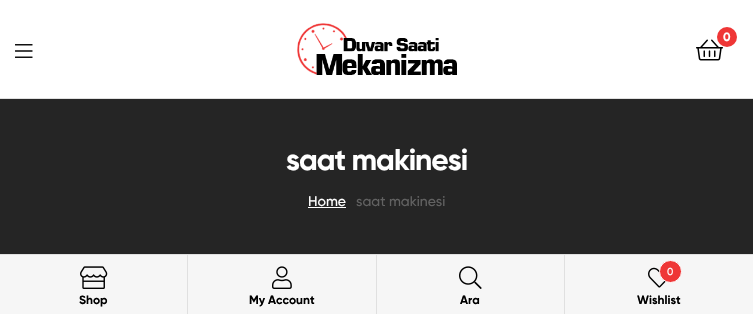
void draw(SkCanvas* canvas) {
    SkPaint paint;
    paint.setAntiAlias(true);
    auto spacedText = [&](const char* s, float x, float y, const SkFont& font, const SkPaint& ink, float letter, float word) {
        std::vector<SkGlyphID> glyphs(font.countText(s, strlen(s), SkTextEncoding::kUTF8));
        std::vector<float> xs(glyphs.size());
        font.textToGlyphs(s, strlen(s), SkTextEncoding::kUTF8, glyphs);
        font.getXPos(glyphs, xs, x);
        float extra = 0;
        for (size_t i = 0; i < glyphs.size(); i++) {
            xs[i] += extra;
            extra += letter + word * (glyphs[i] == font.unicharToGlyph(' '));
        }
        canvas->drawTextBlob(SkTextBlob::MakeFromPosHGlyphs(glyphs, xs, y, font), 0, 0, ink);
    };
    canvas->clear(0xFF252525);
    paint.setColor(0xFFFFFFFF);
    canvas->drawRect(SkRect::MakeXYWH(0, 0, 753, 98), paint);
    paint.setColor(0xFFE0E0E0);
    canvas->drawRect(SkRect::MakeXYWH(0, 98, 753, 1), paint);
    canvas->drawImageRect(SkImages::DeferredFromEncodedData(SkData::MakeFromFileName("img1.png")), SkRect::MakeXYWH(297, 23, 160, 52), SkSamplingOptions());
    canvas->drawImageRect(SkImages::DeferredFromEncodedData(SkData::MakeFromFileName("img2.png")), SkRect::MakeXYWH(696, 39, 27, 22), SkSamplingOptions());
    paint.setColor(0xFFEF3636);
    canvas->drawCircle(727, 37, 10, paint);
    SkFont font1(fontMgr->matchFamilyStyle("Gilroy", SkFontStyle::Bold()), 12);
    font1.setSubpixel(true);
    paint.setColor(0xFFFFFFFF);
    canvas->drawString("0", 723, 41, font1, paint);
    canvas->drawImageRect(SkImages::DeferredFromEncodedData(SkData::MakeFromFileName("img3.png")), SkRect::MakeXYWH(15, 44, 18, 14), SkSamplingOptions());
    SkFont font2(fontMgr->matchFamilyStyle("Gilroy", SkFontStyle::Bold()), 30);
    font2.setSubpixel(true);
    spacedText("saat makinesi", 286, 170, font2, paint, -1, 0);
    SkFont font3(fontMgr->matchFamilyStyle("Gilroy", SkFontStyle(500, SkFontStyle::kNormal_Width, SkFontStyle::kUpright_Slant)), 14);
    font3.setSubpixel(true);
    canvas->drawString("Home", 308, 206, font3, paint);
    canvas->drawRect(SkRect::MakeXYWH(308, 207, 38, 1), paint);
    paint.setColor(0xFF626262);
    canvas->drawString("saat makinesi", 356, 206, font3, paint);
    paint.setColor(0xFFE0E0E0);
    canvas->drawRect(SkRect::MakeXYWH(0, 254, 753, 1), paint);
    paint.setColor(0xFFF6F6F6);
    canvas->drawRect(SkRect::MakeXYWH(0, 255, 187, 59), paint);
    paint.setColor(0xFFE0E0E0);
    canvas->drawRect(SkRect::MakeXYWH(187, 255, 1, 59), paint);
    canvas->drawImageRect(SkImages::DeferredFromEncodedData(SkData::MakeFromFileName("img4.png")), SkRect::MakeXYWH(80, 266, 28, 23), SkSamplingOptions());
    paint.setColor(0xFF000000);
    canvas->drawString("Shop", 79, 304, font1, paint);
    paint.setColor(0xFFF6F6F6);
    canvas->drawRect(SkRect::MakeXYWH(188, 255, 188, 59), paint);
    paint.setColor(0xFFE0E0E0);
    canvas->drawRect(SkRect::MakeXYWH(376, 255, 1, 59), paint);
    canvas->drawImageRect(SkImages::DeferredFromEncodedData(SkData::MakeFromFileName("img5.png")), SkRect::MakeXYWH(272, 266, 20, 23), SkSamplingOptions());
    paint.setColor(0xFF000000);
    canvas->drawString("My Account", 249, 304, font1, paint);
    paint.setColor(0xFFF6F6F6);
    canvas->drawRect(SkRect::MakeXYWH(377, 255, 187, 59), paint);
    paint.setColor(0xFFE0E0E0);
    canvas->drawRect(SkRect::MakeXYWH(564, 255, 1, 59), paint);
    canvas->drawImageRect(SkImages::DeferredFromEncodedData(SkData::MakeFromFileName("img6.png")), SkRect::MakeXYWH(459, 266, 23, 23), SkSamplingOptions());
    paint.setColor(0xFF000000);
    canvas->drawString("Ara", 460, 304, font1, paint);
    paint.setColor(0xFFF6F6F6);
    canvas->drawRect(SkRect::MakeXYWH(565, 255, 188, 59), paint);
    canvas->drawImageRect(SkImages::DeferredFromEncodedData(SkData::MakeFromFileName("img7.png")), SkRect::MakeXYWH(648, 267, 18, 21), SkSamplingOptions());
    paint.setColor(0xFFEF3636);
    canvas->drawCircle(670.5f, 271.5f, 11, paint);
    paint.setStyle(SkPaint::kStroke_Style);
    paint.setStrokeWidth(1);
    paint.setColor(0xFFFFFFFF);
    canvas->drawCircle(670.5f, 271.5f, 11, paint);
    SkFont font4(fontMgr->matchFamilyStyle("Gilroy", SkFontStyle(500, SkFontStyle::kNormal_Width, SkFontStyle::kUpright_Slant)), 10);
    font4.setSubpixel(true);
    paint.setStyle(SkPaint::kFill_Style);
    canvas->drawString("0", 667, 275, font4, paint);
    paint.setColor(0xFF000000);
    canvas->drawString("Wishlist", 637, 304, font1, paint);
}
